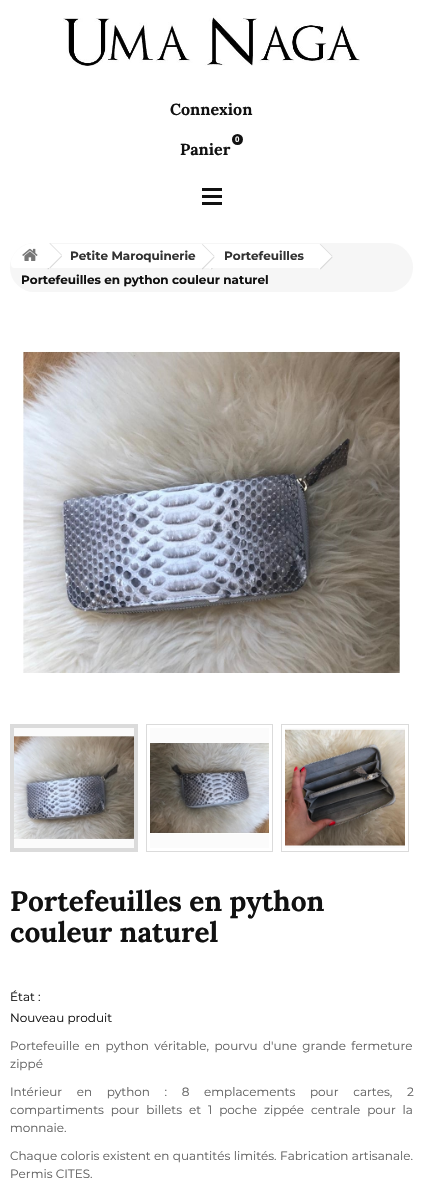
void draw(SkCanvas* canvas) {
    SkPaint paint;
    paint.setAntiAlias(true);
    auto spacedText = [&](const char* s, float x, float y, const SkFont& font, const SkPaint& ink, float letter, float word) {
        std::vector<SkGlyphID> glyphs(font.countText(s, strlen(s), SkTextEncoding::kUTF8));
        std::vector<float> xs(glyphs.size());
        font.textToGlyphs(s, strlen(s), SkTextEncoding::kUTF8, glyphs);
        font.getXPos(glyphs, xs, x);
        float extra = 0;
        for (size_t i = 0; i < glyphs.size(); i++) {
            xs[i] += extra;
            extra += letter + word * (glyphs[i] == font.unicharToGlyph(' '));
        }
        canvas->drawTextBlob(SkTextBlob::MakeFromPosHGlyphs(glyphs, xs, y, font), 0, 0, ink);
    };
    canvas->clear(0xFFFFFFFF);
    canvas->drawImageRect(SkImages::DeferredFromEncodedData(SkData::MakeFromFileName("img1.png")), SkRect::MakeXYWH(63, 15, 297, 51), SkSamplingOptions());
    SkFont font1(fontMgr->matchFamilyStyle("Lora", SkFontStyle::Bold()), 16);
    font1.setSubpixel(true);
    paint.setColor(0xFF111111);
    canvas->drawString("Connexion", 170, 115, font1, paint);
    canvas->drawCircle(237.5f, 139.5f, 5.5f, paint);
    SkFont font2(fontMgr->matchFamilyStyle("Liberation Sans", SkFontStyle::Bold()), 8);
    font2.setSubpixel(true);
    paint.setColor(0xFFFFFFFF);
    canvas->drawString("0", 235, 142, font2, paint);
    paint.setColor(0xFF111111);
    canvas->drawString("Panier", 180, 155, font1, paint);
    canvas->drawRect(SkRect::MakeXYWH(202, 188, 20, 3), paint);
    canvas->drawRect(SkRect::MakeXYWH(202, 195, 20, 3), paint);
    canvas->drawRect(SkRect::MakeXYWH(202, 202, 20, 3), paint);
    paint.setColor(0xFFF6F6F6);
    canvas->drawRoundRect(SkRect::MakeXYWH(10, 243, 403, 49), 24.5f, 24.5f, paint);
    paint.setColor(0xFFFFFFFF);
    canvas->drawRect(SkRect::MakeXYWH(50, 244, 152, 24), paint);
    paint.setColor(0x26000000);
    canvas->drawPath(SkPathBuilder().moveTo(59.5f, 256.5f).lineTo(60, 257.5f).lineTo(48, 269.5f).lineTo(47.5f, 268.5f).close().detach(), paint);
    canvas->save();
    canvas->clipPath(SkPathBuilder().moveTo(34.5f, 243).lineTo(388.5f, 243).cubicTo(402, 243, 413, 254, 413, 267.5f).cubicTo(413, 281, 402, 292, 388.5f, 292).lineTo(34.5f, 292).cubicTo(21, 292, 10, 281, 10, 267.5f).cubicTo(10, 254, 21, 243, 34.5f, 243).close().detach(), true);
    paint.setColor(0xFFFFFFFF);
    canvas->drawPath(SkPathBuilder().moveTo(14, 243).lineTo(49, 243).lineTo(49, 268).lineTo(14, 268).cubicTo(12.5f, 268, 11, 266.5f, 11, 265).lineTo(11, 246).cubicTo(11, 244.5f, 12.5f, 243, 14, 243).close().detach(), paint);
    canvas->restore();
    canvas->drawPath(SkPathBuilder().moveTo(51, 243.5f).lineTo(61.5f, 254.5f).cubicTo(62.5f, 255, 62.5f, 256.5f, 61.5f, 257).lineTo(51, 267.5f).cubicTo(50, 268.5f, 49, 268.5f, 48, 267.5f).lineTo(37.5f, 257).cubicTo(36.5f, 256.5f, 36.5f, 255, 37.5f, 254.5f).lineTo(48, 243.5f).cubicTo(49, 243, 50, 243, 51, 243.5f).close().detach(), paint);
    canvas->drawImageRect(SkImages::DeferredFromEncodedData(SkData::MakeFromFileName("img2.png")), SkRect::MakeXYWH(22, 248, 16, 13), SkSamplingOptions());
    paint.setColor(0x26000000);
    canvas->drawPath(SkPathBuilder().moveTo(50, 243).lineTo(62, 255).lineTo(61.5f, 255.5f).lineTo(49.5f, 243.5f).close().detach(), paint);
    paint.setColor(0xFFD9D9D9);
    canvas->drawPath(SkPathBuilder().moveTo(61.5f, 255.5f).lineTo(62, 256.5f).lineTo(50, 268.5f).lineTo(49.5f, 267.5f).close().detach(), paint);
    SkFont font3(fontMgr->matchFamilyStyle("Montserrat", SkFontStyle::Bold()), 12);
    font3.setSubpixel(true);
    paint.setColor(0xFF333333);
    canvas->drawString("Petite Maroquinerie", 70, 260, font3, paint);
    paint.setColor(0xFFFFFFFF);
    canvas->drawPath(SkPathBuilder().moveTo(212.5f, 244.5f).lineTo(223, 255.5f).cubicTo(224, 256, 224, 257.5f, 223, 258).lineTo(212.5f, 268.5f).cubicTo(211.5f, 269.5f, 210.5f, 269.5f, 209.5f, 268.5f).lineTo(199, 258).cubicTo(198, 257.5f, 198, 256, 199, 255.5f).lineTo(209.5f, 244.5f).cubicTo(210.5f, 244, 211.5f, 244, 212.5f, 244.5f).close().detach(), paint);
    paint.setColor(0x26000000);
    canvas->drawPath(SkPathBuilder().moveTo(223, 256.5f).lineTo(223.5f, 257.5f).lineTo(211.5f, 269.5f).lineTo(211, 268.5f).close().detach(), paint);
    paint.setColor(0xFFFFFFFF);
    canvas->drawRect(SkRect::MakeXYWH(202, 244, 117, 24), paint);
    paint.setColor(0xFFD9D9D9);
    canvas->drawPath(SkPathBuilder().moveTo(202.5f, 244).lineTo(214.5f, 256).lineTo(214, 256.5f).lineTo(202, 244.5f).close().detach(), paint);
    paint.setColor(0x26000000);
    canvas->drawPath(SkPathBuilder().moveTo(214, 256.5f).lineTo(214.5f, 257.5f).lineTo(202.5f, 269.5f).lineTo(202, 268.5f).close().detach(), paint);
    paint.setColor(0xFF333333);
    canvas->drawString("Portefeuilles", 224, 260, font3, paint);
    paint.setColor(0xFFFFFFFF);
    canvas->drawPath(SkPathBuilder().moveTo(321, 244.5f).lineTo(332, 255.5f).cubicTo(332.5f, 256, 332.5f, 257.5f, 332, 258).lineTo(321, 268.5f).cubicTo(320.5f, 269.5f, 319, 269.5f, 318.5f, 268.5f).lineTo(308, 258).cubicTo(307, 257.5f, 307, 256, 308, 255.5f).lineTo(318.5f, 244.5f).cubicTo(319, 244, 320.5f, 244, 321, 244.5f).close().detach(), paint);
    paint.setColor(0xFFD8D8D8);
    canvas->drawPath(SkPathBuilder().moveTo(320.5f, 244).lineTo(332.5f, 256).lineTo(332, 256.5f).lineTo(320, 244.5f).close().detach(), paint);
    paint.setColor(0x26000000);
    canvas->drawPath(SkPathBuilder().moveTo(332, 256.5f).lineTo(332.5f, 257.5f).lineTo(320.5f, 269.5f).lineTo(320, 268.5f).close().detach(), paint);
    paint.setColor(0xFF111111);
    canvas->drawString("Portefeuilles en python couleur naturel", 21, 284, font3, paint);
    canvas->drawImageRect(SkImages::DeferredFromEncodedData(SkData::MakeFromFileName("img3.png")), SkRect::MakeXYWH(23, 351, 377, 322), SkSamplingOptions());
    paint.setStyle(SkPaint::kStroke_Style);
    paint.setStrokeWidth(1);
    paint.setColor(0xFFDBDBDB);
    canvas->drawRect(SkRect::MakeXYWH(10.5f, 724.5f, 127, 127), paint);
    paint.setStyle(SkPaint::kFill_Style);
    paint.setColor(0xFFFBFBFB);
    canvas->drawRect(SkRect::MakeXYWH(12.5f, 726.5f, 123, 123), paint);
    paint.setStyle(SkPaint::kStroke_Style);
    paint.setStrokeWidth(3);
    paint.setColor(0xFFDBDBDB);
    canvas->drawRect(SkRect::MakeXYWH(12.5f, 726.5f, 123, 123), paint);
    canvas->drawImageRect(SkImages::DeferredFromEncodedData(SkData::MakeFromFileName("img4.png")), SkRect::MakeXYWH(14, 736, 120, 103), SkSamplingOptions());
    paint.setStrokeWidth(1);
    canvas->drawRect(SkRect::MakeXYWH(146.5f, 724.5f, 126, 127), paint);
    paint.setStyle(SkPaint::kFill_Style);
    paint.setColor(0xFFFBFBFB);
    canvas->drawRect(SkRect::MakeXYWH(150, 728, 119, 120), paint);
    canvas->drawImageRect(SkImages::DeferredFromEncodedData(SkData::MakeFromFileName("img5.png")), SkRect::MakeXYWH(150, 743, 119, 91), SkSamplingOptions());
    paint.setStyle(SkPaint::kStroke_Style);
    paint.setColor(0xFFDBDBDB);
    canvas->drawRect(SkRect::MakeXYWH(281.5f, 724.5f, 127, 127), paint);
    paint.setStyle(SkPaint::kFill_Style);
    paint.setColor(0xFFFBFBFB);
    canvas->drawRect(SkRect::MakeXYWH(285, 728, 120, 120), paint);
    canvas->drawImageRect(SkImages::DeferredFromEncodedData(SkData::MakeFromFileName("img6.png")), SkRect::MakeXYWH(285, 729, 120, 117), SkSamplingOptions());
    SkFont font4(fontMgr->matchFamilyStyle("Lora", SkFontStyle::Bold()), 28);
    font4.setSubpixel(true);
    paint.setColor(0xFF111111);
    canvas->drawString("Portefeuilles en python", 10, 911, font4, paint);
    canvas->drawString("couleur naturel", 10, 942, font4, paint);
    SkFont font5(fontMgr->matchFamilyStyle("Montserrat", SkFontStyle::Normal()), 12);
    font5.setSubpixel(true);
    canvas->drawString("État :", 10, 1001, font5, paint);
    canvas->drawString("Nouveau produit", 10, 1022, font5, paint);
    paint.setColor(0xFF626262);
    spacedText("Portefeuille en python véritable, pourvu d'une grande fermeture", 10, 1050, font5, paint, 0, 2.25f);
    canvas->drawString("zippé", 10, 1068, font5, paint);
    spacedText("Intérieur en python : 8 emplacements pour cartes, 2", 10, 1096, font5, paint, 0, 11.5f);
    spacedText("compartiments pour billets et 1 poche zippée centrale pour la", 10, 1114, font5, paint, 0, 3.75f);
    canvas->drawString("monnaie.", 10, 1132, font5, paint);
    spacedText("Chaque coloris existent en quantités limités. Fabrication artisanale.", 10, 1160, font5, paint, 0, 0.25f);
    canvas->drawString("Permis CITES.", 10, 1178, font5, paint);
}
